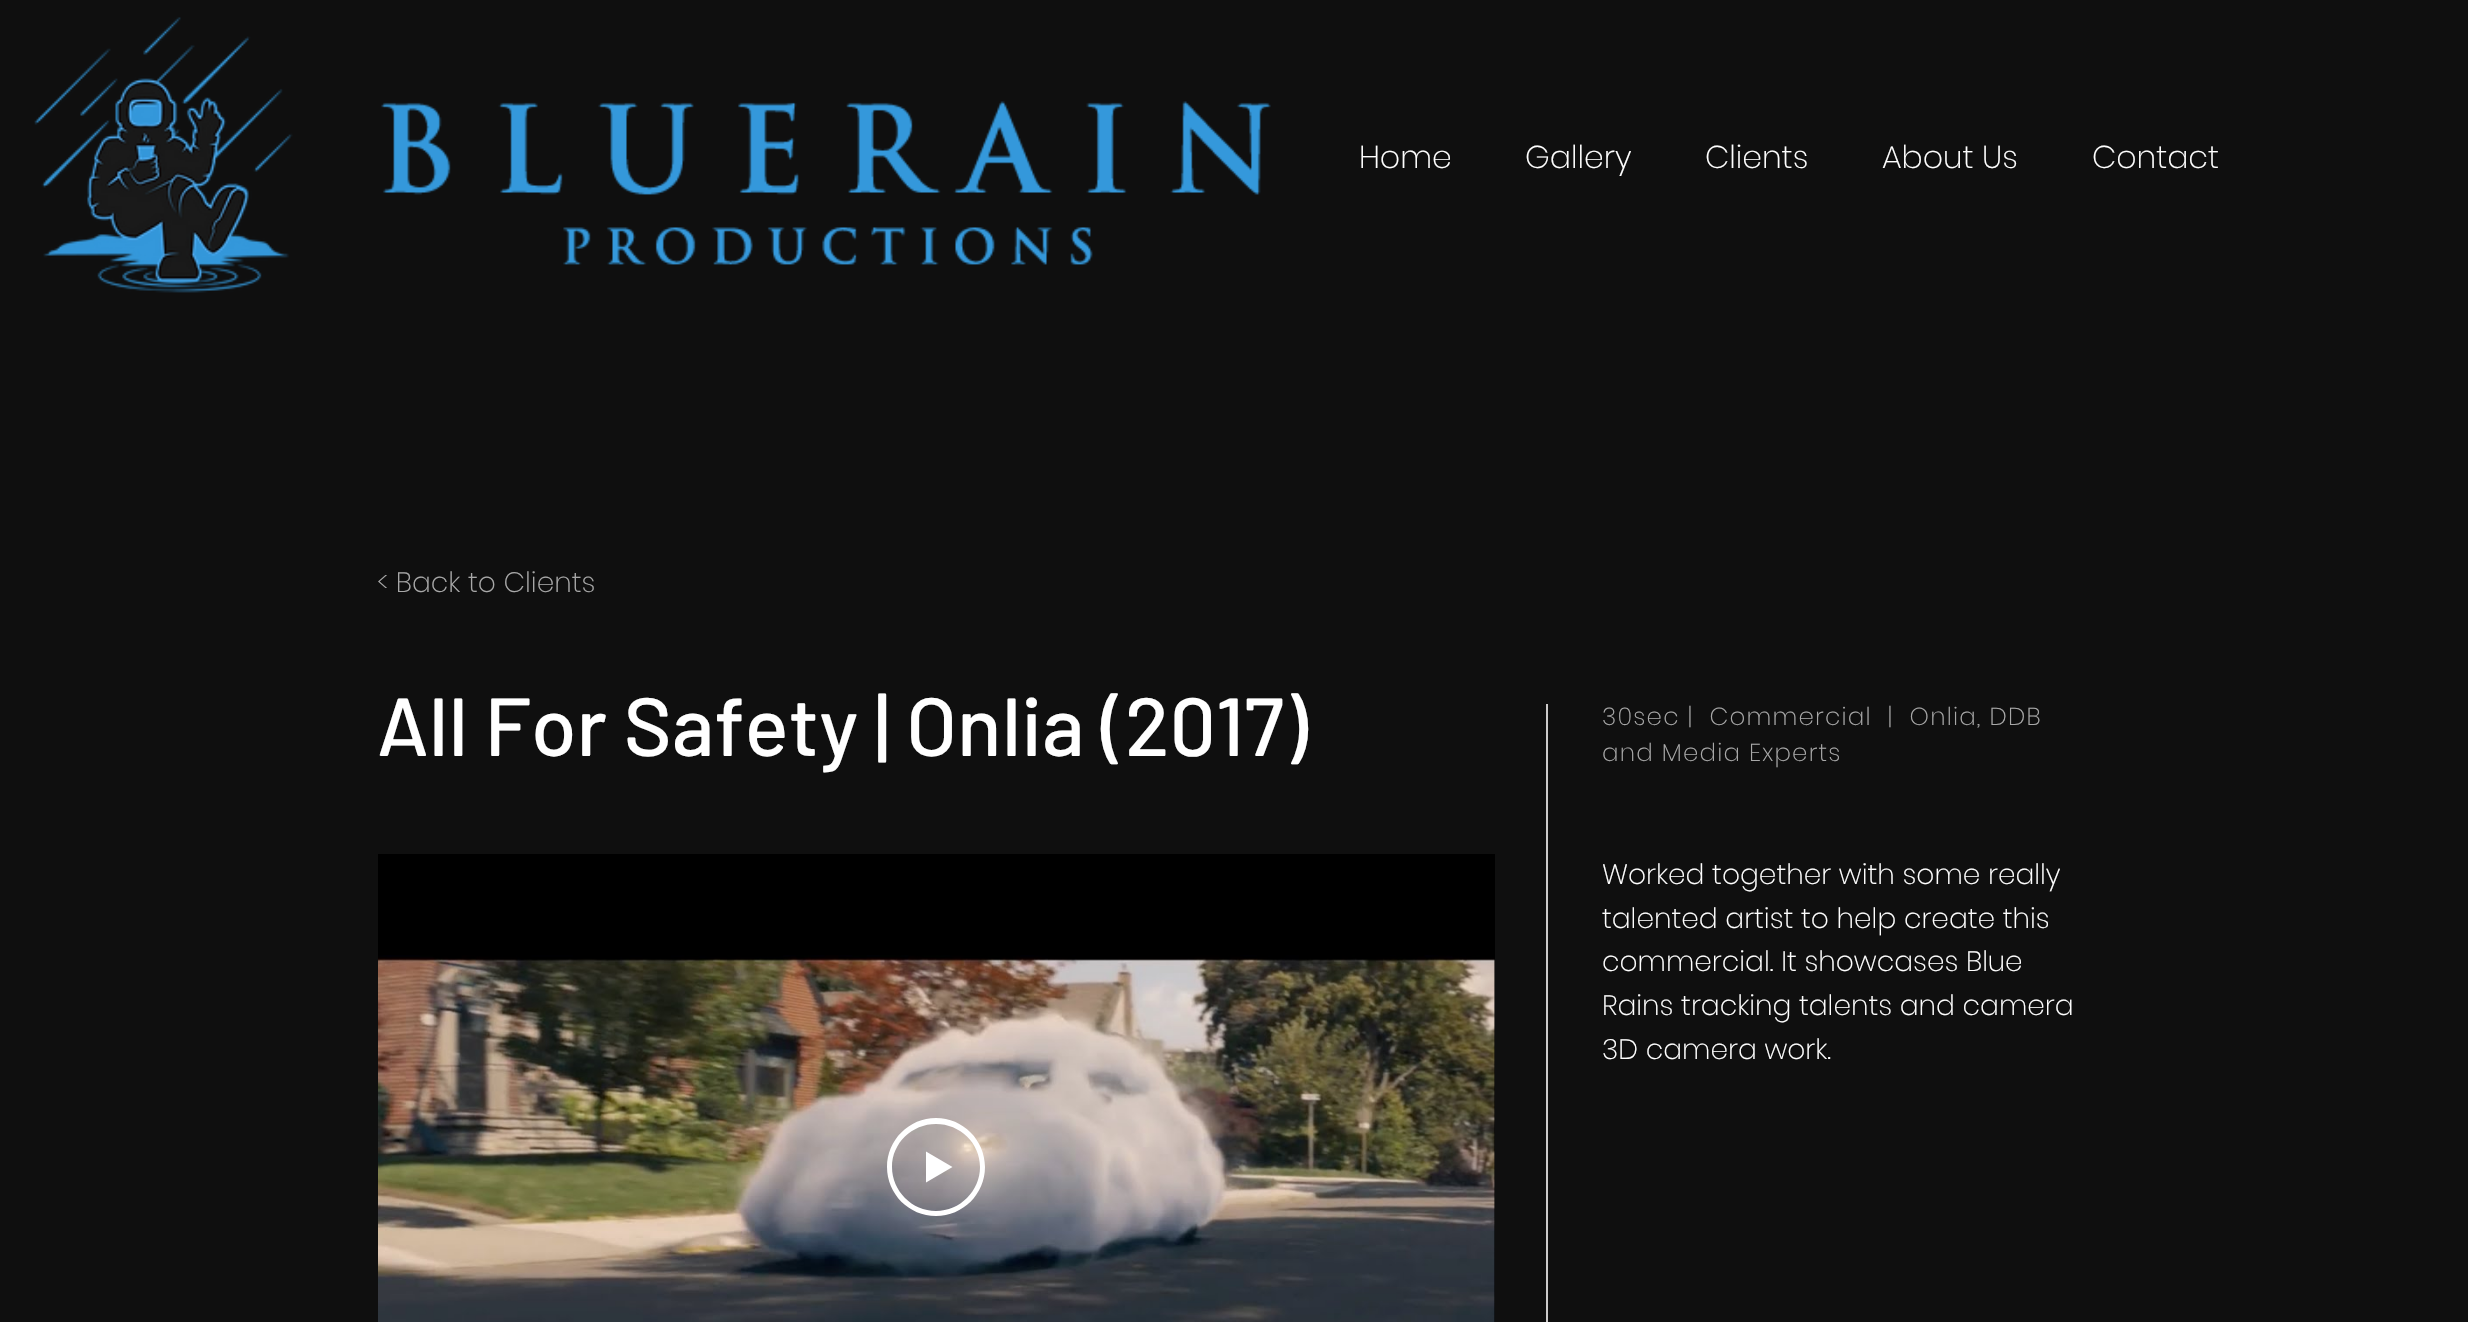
void draw(SkCanvas* canvas) {
    SkPaint paint;
    paint.setAntiAlias(true);
    auto spacedText = [&](const char* s, float x, float y, const SkFont& font, const SkPaint& ink, float letter, float word) {
        std::vector<SkGlyphID> glyphs(font.countText(s, strlen(s), SkTextEncoding::kUTF8));
        std::vector<float> xs(glyphs.size());
        font.textToGlyphs(s, strlen(s), SkTextEncoding::kUTF8, glyphs);
        font.getXPos(glyphs, xs, x);
        float extra = 0;
        for (size_t i = 0; i < glyphs.size(); i++) {
            xs[i] += extra;
            extra += letter + word * (glyphs[i] == font.unicharToGlyph(' '));
        }
        canvas->drawTextBlob(SkTextBlob::MakeFromPosHGlyphs(glyphs, xs, y, font), 0, 0, ink);
    };
    canvas->clear(0xFF0F0F0F);
    canvas->drawImageRect(SkImages::DeferredFromEncodedData(SkData::MakeFromFileName("img1.png")), SkRect::MakeXYWH(34, 17, 259, 276), SkSamplingOptions());
    canvas->drawImageRect(SkImages::DeferredFromEncodedData(SkData::MakeFromFileName("img2.png")), SkRect::MakeXYWH(381, 101, 890, 164), SkSamplingOptions());
    SkFont font1(fontMgr->matchFamilyStyle("Poppins", SkFontStyle(200, SkFontStyle::kNormal_Width, SkFontStyle::kUpright_Slant)), 31.5f);
    font1.setSubpixel(true);
    paint.setColor(0xFFFFFFFF);
    canvas->drawString("Home", 1359, 168, font1, paint);
    canvas->drawString("Gallery", 1525, 168, font1, paint);
    canvas->drawString("Clients", 1705, 168, font1, paint);
    canvas->drawString("About Us", 1882, 168, font1, paint);
    canvas->drawString("Contact", 2092, 168, font1, paint);
    SkFont font2(fontMgr->matchFamilyStyle("Poppins", SkFontStyle(200, SkFontStyle::kNormal_Width, SkFontStyle::kUpright_Slant)), 28);
    font2.setSubpixel(true);
    paint.setColor(0xFFA8A8A8);
    canvas->drawString("< Back to Clients", 377, 592, font2, paint);
    SkFont font3(fontMgr->matchFamilyStyle("Barlow", SkFontStyle(500, SkFontStyle::kNormal_Width, SkFontStyle::kUpright_Slant)), 82.25f);
    font3.setSubpixel(true);
    paint.setColor(0xFFFFFFFF);
    canvas->drawString("All For Safety | Onlia (2017)", 377, 756, font3, paint);
    paint.setColor(0xFFCCCACA);
    canvas->drawRect(SkRect::MakeXYWH(1546, 704, 2, 618), paint);
    SkFont font4(fontMgr->matchFamilyStyle("Poppins", SkFontStyle(200, SkFontStyle::kNormal_Width, SkFontStyle::kUpright_Slant)), 24.5f);
    font4.setSubpixel(true);
    paint.setColor(0xFFA8A8A8);
    spacedText("30sec |  Commercial  |  Onlia, DDB", 1602, 725, font4, paint, 1.2f, 0);
    spacedText("and Media Experts", 1602, 761, font4, paint, 1.2f, 0);
    paint.setColor(0xFF000000);
    canvas->drawRect(SkRect::MakeXYWH(378, 854, 1117, 468), paint);
    canvas->drawImageRect(SkImages::DeferredFromEncodedData(SkData::MakeFromFileName("img3.png")), SkRect::MakeXYWH(378, 955, 1117, 367), SkSamplingOptions());
    canvas->drawImageRect(SkImages::DeferredFromEncodedData(SkData::MakeFromFileName("img4.png")), SkRect::MakeXYWH(378, 959, 1117, 363), SkSamplingOptions());
    paint.setColor(0xFFFFFFFF);
    canvas->drawPath(SkPathBuilder(SkPathFillType::kEvenOdd).moveTo(936, 1211).cubicTo(960, 1211, 980, 1191, 980, 1167).cubicTo(980, 1143, 960, 1124, 936, 1124).cubicTo(912, 1124, 892, 1143, 892, 1167).cubicTo(892, 1191, 912, 1211, 936, 1211).close().moveTo(936, 1216).cubicTo(909, 1216, 887, 1194, 887, 1167).cubicTo(887, 1140, 909, 1118, 936, 1118).cubicTo(963, 1118, 985, 1140, 985, 1167).cubicTo(985, 1194, 963, 1216, 936, 1216).close().detach(), paint);
    canvas->drawPath(SkPathBuilder(SkPathFillType::kEvenOdd).moveTo(952.5f, 1167).lineTo(926, 1182.5f).lineTo(926, 1151.5f).close().detach(), paint);
    canvas->drawString("Worked together with some really", 1602, 884, font2, paint);
    canvas->drawString("talented artist to help create this", 1602, 928, font2, paint);
    canvas->drawString("commercial. It showcases Blue", 1602, 971, font2, paint);
    canvas->drawString("Rains tracking talents and camera", 1602, 1015, font2, paint);
    canvas->drawString("3D camera work.", 1602, 1059, font2, paint);
}
